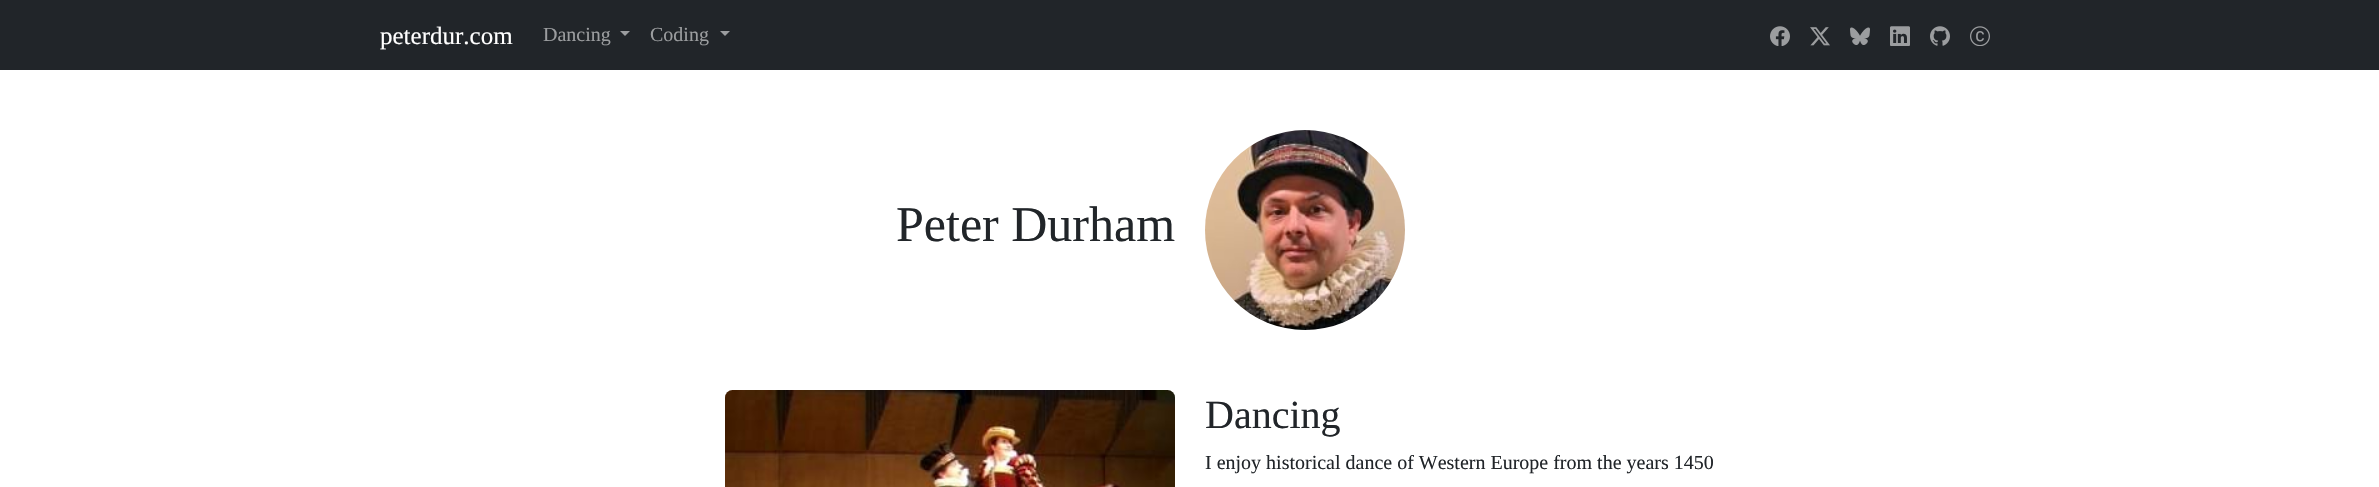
void draw(SkCanvas* canvas) {
    SkPaint paint;
    paint.setAntiAlias(true);
    canvas->clear(0xFFFFFFFF);
    paint.setColor(0xFF212529);
    canvas->drawRect(SkRect::MakeXYWH(0, 0, 2379, 70), paint);
    SkFont font1(fontMgr->matchFamilyStyle("Liberation Serif", SkFontStyle::Normal()), 25);
    font1.setSubpixel(true);
    paint.setColor(0xFFFFFFFF);
    canvas->drawString("peterdur.com", 380, 44, font1, paint);
    SkFont font2(fontMgr->matchFamilyStyle("Liberation Serif", SkFontStyle::Normal()), 20);
    font2.setSubpixel(true);
    paint.setColor(0xFF9B9D9F);
    canvas->drawString("Dancing", 543, 41, font2, paint);
    canvas->drawPath(SkPathBuilder().moveTo(620, 31).lineTo(630, 31).lineTo(625, 36).close().detach(), paint);
    canvas->drawString("Coding", 650, 41, font2, paint);
    canvas->drawPath(SkPathBuilder().moveTo(720, 31).lineTo(730, 31).lineTo(725, 36).close().detach(), paint);
    canvas->drawImageRect(SkImages::DeferredFromEncodedData(SkData::MakeFromFileName("img1.png")), SkRect::MakeXYWH(1770, 26, 20, 20), SkSamplingOptions());
    canvas->drawImageRect(SkImages::DeferredFromEncodedData(SkData::MakeFromFileName("img2.png")), SkRect::MakeXYWH(1810, 27, 20, 19), SkSamplingOptions());
    canvas->drawImageRect(SkImages::DeferredFromEncodedData(SkData::MakeFromFileName("img3.png")), SkRect::MakeXYWH(1850, 27, 20, 18), SkSamplingOptions());
    canvas->drawImageRect(SkImages::DeferredFromEncodedData(SkData::MakeFromFileName("img4.png")), SkRect::MakeXYWH(1890, 26, 20, 20), SkSamplingOptions());
    canvas->drawImageRect(SkImages::DeferredFromEncodedData(SkData::MakeFromFileName("img5.png")), SkRect::MakeXYWH(1930, 26, 20, 20), SkSamplingOptions());
    canvas->drawImageRect(SkImages::DeferredFromEncodedData(SkData::MakeFromFileName("img6.png")), SkRect::MakeXYWH(1970, 26, 20, 20), SkSamplingOptions());
    SkFont font3(fontMgr->matchFamilyStyle("Liberation Serif", SkFontStyle::Normal()), 50);
    font3.setSubpixel(true);
    paint.setColor(0xFF212529);
    canvas->drawString("Peter Durham", 896, 241, font3, paint);
    canvas->drawImageRect(SkImages::DeferredFromEncodedData(SkData::MakeFromFileName("img7.png")), SkRect::MakeXYWH(1205, 130, 200, 200), SkSamplingOptions());
    canvas->drawImageRect(SkImages::DeferredFromEncodedData(SkData::MakeFromFileName("img8.png")), SkRect::MakeXYWH(725, 390, 450, 97), SkSamplingOptions());
    SkFont font4(fontMgr->matchFamilyStyle("Liberation Serif", SkFontStyle::Normal()), 40);
    font4.setSubpixel(true);
    canvas->drawString("Dancing", 1205, 428, font4, paint);
    canvas->drawString("I enjoy historical dance of Western Europe from the years 1450", 1205, 469, font2, paint);
}
